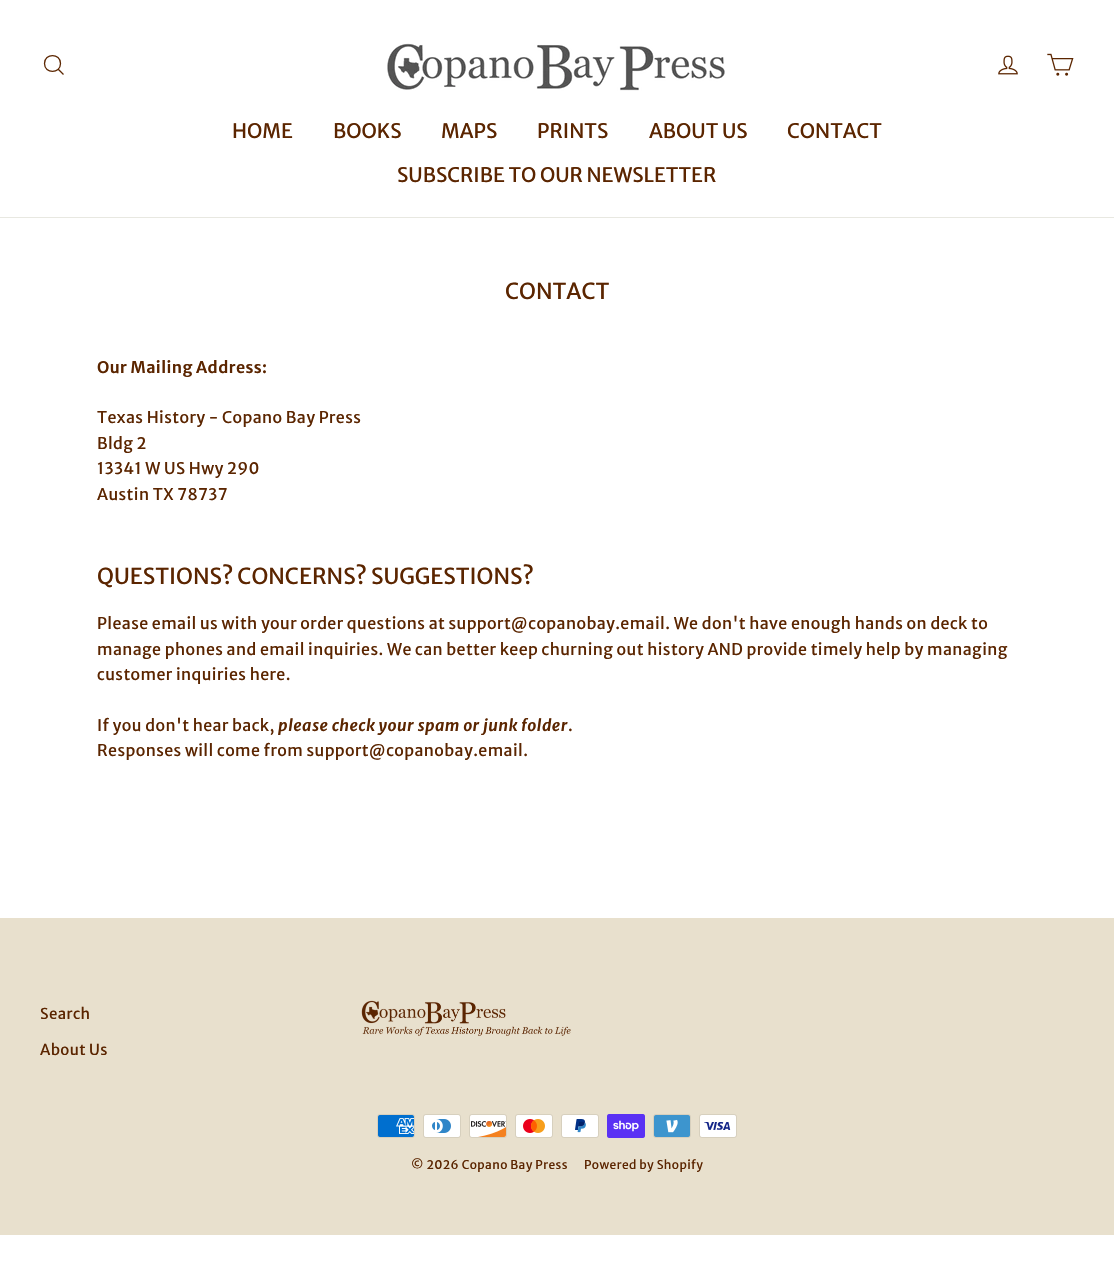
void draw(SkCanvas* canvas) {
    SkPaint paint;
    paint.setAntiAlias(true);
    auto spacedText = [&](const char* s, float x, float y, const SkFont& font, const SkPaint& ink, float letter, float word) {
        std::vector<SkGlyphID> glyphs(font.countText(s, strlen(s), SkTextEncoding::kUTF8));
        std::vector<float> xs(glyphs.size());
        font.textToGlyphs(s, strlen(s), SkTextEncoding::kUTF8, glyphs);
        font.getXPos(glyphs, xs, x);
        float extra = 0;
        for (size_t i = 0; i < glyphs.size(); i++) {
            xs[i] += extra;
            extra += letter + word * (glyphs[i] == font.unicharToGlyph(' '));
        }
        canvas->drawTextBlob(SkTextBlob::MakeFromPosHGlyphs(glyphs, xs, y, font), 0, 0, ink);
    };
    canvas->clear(0xFFFFFFFF);
    paint.setColor(0xFFE8E8E1);
    canvas->drawRect(SkRect::MakeXYWH(0, 217, 1114, 1), paint);
    paint.setStyle(SkPaint::kStroke_Style);
    paint.setStrokeWidth(1.3f);
    paint.setColor(0xFF5B2500);
    canvas->drawPath(SkPathBuilder().moveTo(60.5f, 63.5f).cubicTo(60.5f, 74, 44.5f, 74, 44.5f, 63.5f).cubicTo(44.5f, 53, 60.5f, 53, 60.5f, 63.5f).close().moveTo(63.5f, 74.5f).lineTo(58.5f, 69.5f).detach(), paint);
    canvas->drawImageRect(SkImages::DeferredFromEncodedData(SkData::MakeFromFileName("img1.png")), SkRect::MakeXYWH(387, 43, 338, 48), SkSamplingOptions());
    canvas->drawImageRect(SkImages::DeferredFromEncodedData(SkData::MakeFromFileName("img2.png")), SkRect::MakeXYWH(998, 55, 20, 20), SkSamplingOptions());
    canvas->drawImageRect(SkImages::DeferredFromEncodedData(SkData::MakeFromFileName("img3.png")), SkRect::MakeXYWH(1047, 53, 27, 23), SkSamplingOptions());
    SkFont font1(fontMgr->matchFamilyStyle("Merriweather Sans", SkFontStyle::Normal()), 20);
    font1.setSubpixel(true);
    paint.setStyle(SkPaint::kFill_Style);
    canvas->drawString("HOME", 232, 138, font1, paint);
    canvas->drawString("BOOKS", 333, 138, font1, paint);
    canvas->drawString("MAPS", 441, 138, font1, paint);
    canvas->drawString("PRINTS", 537, 138, font1, paint);
    canvas->drawString("ABOUT US", 649, 138, font1, paint);
    canvas->drawString("CONTACT", 787, 138, font1, paint);
    canvas->drawString("SUBSCRIBE TO OUR NEWSLETTER", 397, 182, font1, paint);
    SkFont font2(fontMgr->matchFamilyStyle("Merriweather Sans", SkFontStyle::Normal()), 22);
    font2.setSubpixel(true);
    canvas->drawString("CONTACT", 505, 299, font2, paint);
    SkFont font3(fontMgr->matchFamilyStyle("Merriweather Sans", SkFontStyle(600, SkFontStyle::kNormal_Width, SkFontStyle::kUpright_Slant)), 16);
    font3.setSubpixel(true);
    spacedText("Our Mailing Address:", 97, 373, font3, paint, 0.4f, 0);
    SkFont font4(fontMgr->matchFamilyStyle("Merriweather Sans", SkFontStyle::Normal()), 16);
    font4.setSubpixel(true);
    spacedText("Texas History - Copano Bay Press", 97, 423, font4, paint, 0.4f, 0);
    spacedText("Bldg 2", 97, 449, font4, paint, 0.4f, 0);
    spacedText("13341 W US Hwy 290", 97, 474, font4, paint, 0.4f, 0);
    spacedText("Austin TX 78737", 97, 500, font4, paint, 0.4f, 0);
    canvas->drawString("QUESTIONS? CONCERNS? SUGGESTIONS?", 97, 584, font2, paint);
    spacedText("Please email us with your order questions at support@copanobay.email. We don't have enough hands on deck to", 97, 629, font4, paint, 0.4f, 0);
    spacedText("manage phones and email inquiries. We can better keep churning out history AND provide timely help by managing", 97, 655, font4, paint, 0.4f, 0);
    spacedText("customer inquiries here.", 97, 680, font4, paint, 0.4f, 0);
    spacedText("If you don't hear back,", 97, 731, font4, paint, 0.4f, 0);
    SkFont font5(fontMgr->matchFamilyStyle("Merriweather Sans", SkFontStyle(600, SkFontStyle::kNormal_Width, SkFontStyle::kItalic_Slant)), 16);
    font5.setSubpixel(true);
    spacedText("please check your spam or junk folder", 278, 731, font5, paint, 0.4f, 0);
    spacedText(".", 568, 731, font4, paint, 0.4f, 0);
    spacedText("Responses will come from support@copanobay.email.", 97, 756, font4, paint, 0.4f, 0);
    paint.setColor(0xFFE8E0CD);
    canvas->drawRect(SkRect::MakeXYWH(0, 918, 1114, 317), paint);
    SkFont font6(fontMgr->matchFamilyStyle("Merriweather Sans", SkFontStyle::Normal()), 15);
    font6.setSubpixel(true);
    paint.setColor(0xFF5B2500);
    spacedText("Search", 40, 1019, font6, paint, 0.4f, 0);
    spacedText("About Us", 40, 1055, font6, paint, 0.4f, 0);
    canvas->drawImageRect(SkImages::DeferredFromEncodedData(SkData::MakeFromFileName("img4.png")), SkRect::MakeXYWH(361, 1000, 210, 36), SkSamplingOptions());
    canvas->drawImageRect(SkImages::DeferredFromEncodedData(SkData::MakeFromFileName("img5.png")), SkRect::MakeXYWH(377, 1114, 38, 24), SkSamplingOptions());
    canvas->drawImageRect(SkImages::DeferredFromEncodedData(SkData::MakeFromFileName("img6.png")), SkRect::MakeXYWH(423, 1114, 38, 24), SkSamplingOptions());
    canvas->drawImageRect(SkImages::DeferredFromEncodedData(SkData::MakeFromFileName("img7.png")), SkRect::MakeXYWH(469, 1114, 38, 24), SkSamplingOptions());
    canvas->drawImageRect(SkImages::DeferredFromEncodedData(SkData::MakeFromFileName("img8.png")), SkRect::MakeXYWH(515, 1114, 38, 24), SkSamplingOptions());
    canvas->drawImageRect(SkImages::DeferredFromEncodedData(SkData::MakeFromFileName("img9.png")), SkRect::MakeXYWH(561, 1114, 38, 24), SkSamplingOptions());
    canvas->drawImageRect(SkImages::DeferredFromEncodedData(SkData::MakeFromFileName("img10.png")), SkRect::MakeXYWH(607, 1114, 38, 24), SkSamplingOptions());
    canvas->drawImageRect(SkImages::DeferredFromEncodedData(SkData::MakeFromFileName("img11.png")), SkRect::MakeXYWH(653, 1114, 38, 24), SkSamplingOptions());
    canvas->drawImageRect(SkImages::DeferredFromEncodedData(SkData::MakeFromFileName("img12.png")), SkRect::MakeXYWH(699, 1114, 38, 24), SkSamplingOptions());
    SkFont font7(fontMgr->matchFamilyStyle("Merriweather Sans", SkFontStyle::Normal()), 12);
    font7.setSubpixel(true);
    spacedText("© 2026 Copano Bay Press", 411, 1169, font7, paint, 0.4f, 0);
    spacedText("Powered by Shopify", 584, 1169, font7, paint, 0.4f, 0);
}
